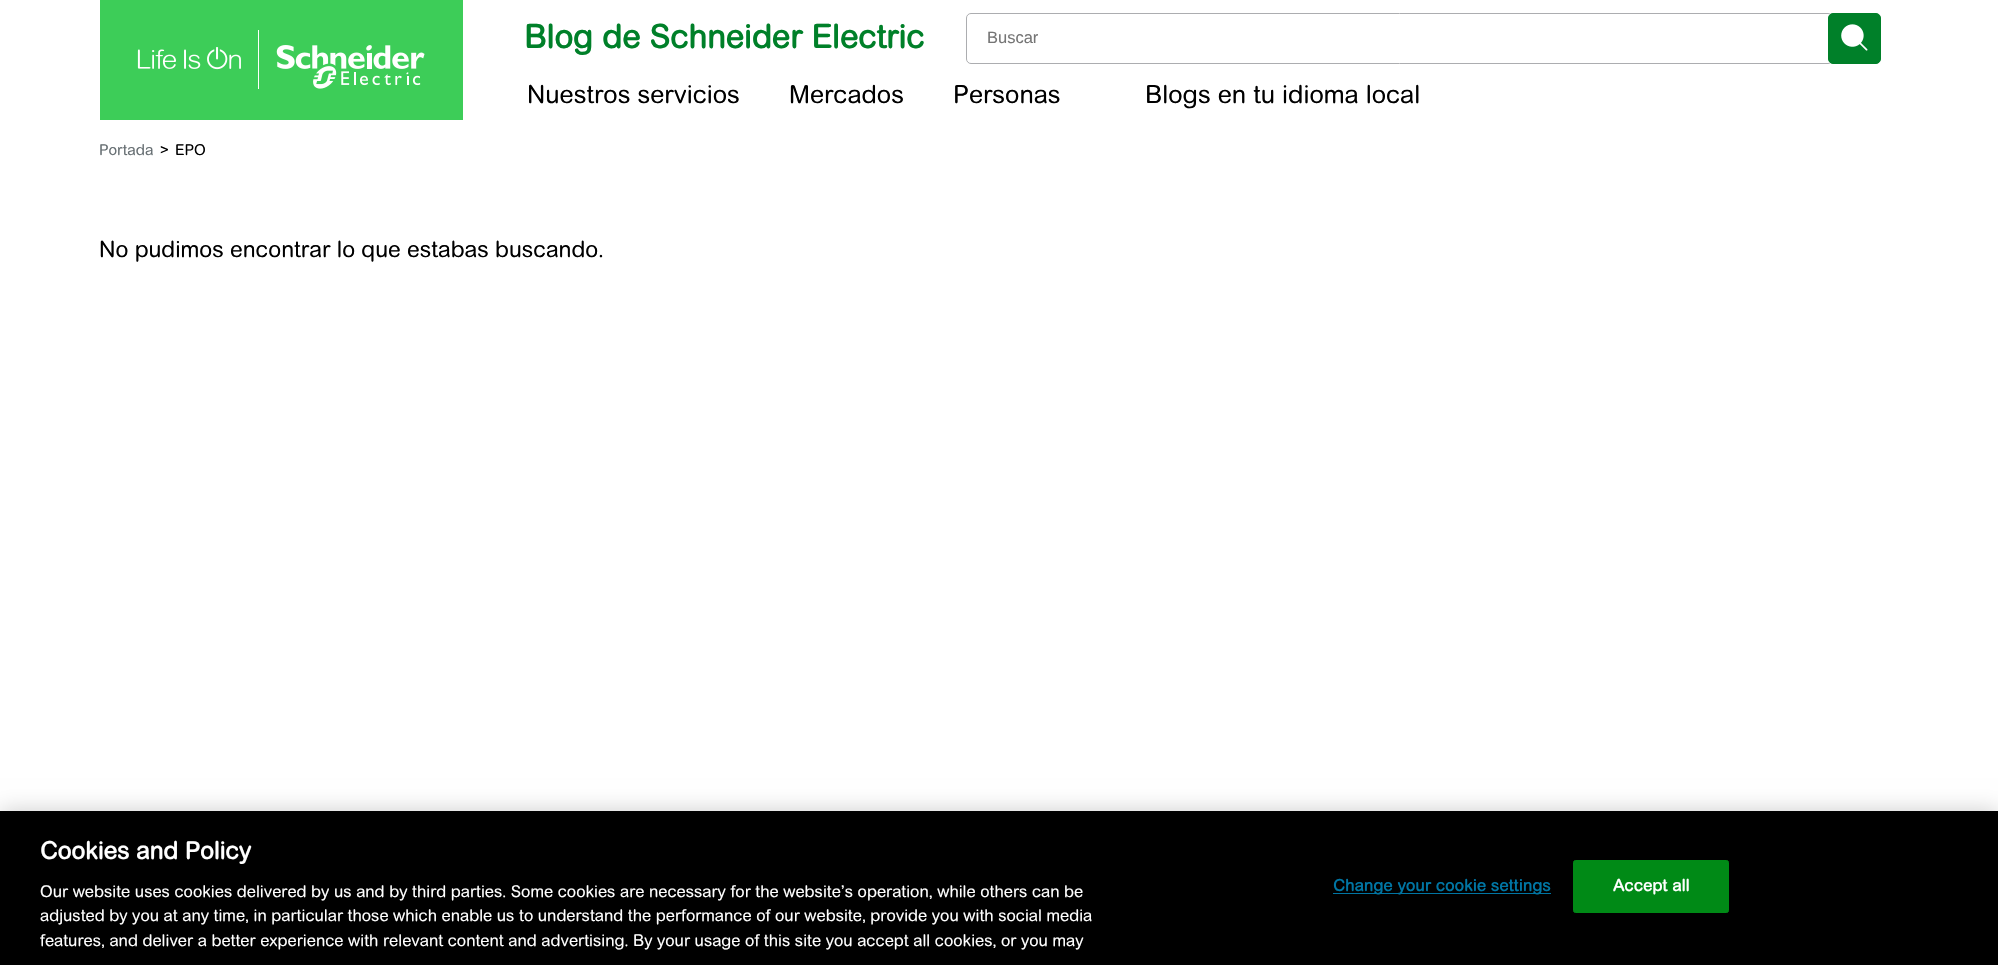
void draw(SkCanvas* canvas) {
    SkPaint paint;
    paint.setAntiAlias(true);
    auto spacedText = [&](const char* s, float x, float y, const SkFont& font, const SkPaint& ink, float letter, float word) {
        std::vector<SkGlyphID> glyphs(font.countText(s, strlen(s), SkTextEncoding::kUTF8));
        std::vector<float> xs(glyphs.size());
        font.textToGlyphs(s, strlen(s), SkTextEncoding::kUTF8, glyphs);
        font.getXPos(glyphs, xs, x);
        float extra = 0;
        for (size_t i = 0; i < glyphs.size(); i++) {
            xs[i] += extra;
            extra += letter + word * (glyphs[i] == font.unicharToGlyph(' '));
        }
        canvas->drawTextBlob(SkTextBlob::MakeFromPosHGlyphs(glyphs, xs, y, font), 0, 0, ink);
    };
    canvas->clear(0xFFFFFFFF);
    paint.setColor(0xFF3DCD58);
    canvas->drawRect(SkRect::MakeXYWH(100, 0, 363, 120), paint);
    canvas->drawImageRect(SkImages::DeferredFromEncodedData(SkData::MakeFromFileName("img1.png")), SkRect::MakeXYWH(137, 30, 288, 59), SkSamplingOptions());
    SkFont font1(fontMgr->matchFamilyStyle("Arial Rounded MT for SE", SkFontStyle::Bold()), 32.5f);
    font1.setSubpixel(true);
    paint.setColor(0xFF008029);
    canvas->drawString("Blog de Schneider Electric", 524, 48, font1, paint);
    paint.setStyle(SkPaint::kStroke_Style);
    paint.setStrokeWidth(1);
    paint.setColor(0xFFACADB0);
    canvas->drawRoundRect(SkRect::MakeXYWH(966.5f, 13.5f, 866, 50), 4.5f, 4.5f, paint);
    SkFont font2(fontMgr->matchFamilyStyle("Liberation Sans", SkFontStyle::Normal()), 16.5f);
    font2.setSubpixel(true);
    paint.setStyle(SkPaint::kFill_Style);
    paint.setColor(0xFF757575);
    canvas->drawString("Buscar", 987, 43, font2, paint);
    paint.setColor(0xFF008029);
    canvas->drawRoundRect(SkRect::MakeXYWH(1828.5f, 13.5f, 52, 50), 4.5f, 4.5f, paint);
    paint.setStyle(SkPaint::kStroke_Style);
    canvas->drawRoundRect(SkRect::MakeXYWH(1828.5f, 13.5f, 52, 50), 4.5f, 4.5f, paint);
    canvas->drawImageRect(SkImages::DeferredFromEncodedData(SkData::MakeFromFileName("img2.png")), SkRect::MakeXYWH(1841, 24, 27, 27), SkSamplingOptions());
    SkFont font3(fontMgr->matchFamilyStyle("Arial Rounded MT for SE", SkFontStyle::Normal()), 25);
    font3.setSubpixel(true);
    paint.setStyle(SkPaint::kFill_Style);
    paint.setColor(0xFF000000);
    canvas->drawString("Nuestros servicios", 527, 103, font3, paint);
    canvas->drawString("Mercados", 789, 103, font3, paint);
    canvas->drawString("Personas", 953, 103, font3, paint);
    canvas->drawString("Blogs en tu idioma local", 1145, 103, font3, paint);
    SkFont font4(fontMgr->matchFamilyStyle("Arial Rounded MT for SE", SkFontStyle::Normal()), 15);
    font4.setSubpixel(true);
    paint.setColor(0xFF676F73);
    canvas->drawString("Portada", 99, 155, font4, paint);
    paint.setColor(0xFF000000);
    canvas->drawString(">", 160, 155, font4, paint);
    canvas->drawString("EPO", 175, 155, font4, paint);
    SkFont font5(fontMgr->matchFamilyStyle("Arial Rounded MT for SE", SkFontStyle::Normal()), 22.5f);
    font5.setSubpixel(true);
    canvas->drawString("No pudimos encontrar lo que estabas buscando.", 99, 257, font5, paint);
    paint.setColor(0x33000000);
    paint.setMaskFilter(SkMaskFilter::MakeBlur(kNormal_SkBlurStyle, 11));
    canvas->drawRect(SkRect::MakeXYWH(0, 811, 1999, 154), paint);
    paint.setMaskFilter(nullptr);
    paint.setColor(0xFF000000);
    canvas->drawRect(SkRect::MakeXYWH(0, 811, 1998, 154), paint);
    SkFont font6(fontMgr->matchFamilyStyle("Arial Rounded MT for SE", SkFontStyle::Bold()), 24);
    font6.setSubpixel(true);
    paint.setColor(0xFFFFFFFF);
    canvas->drawString("Cookies and Policy", 40, 859, font6, paint);
    SkFont font7(fontMgr->matchFamilyStyle("Arial Rounded MT for SE", SkFontStyle::Normal()), 16.25f);
    font7.setSubpixel(true);
    canvas->drawString("Our website uses cookies delivered by us and by third parties. Some cookies are necessary for the website’s operation, while others can be", 40, 897, font7, paint);
    canvas->drawString("adjusted by you at any time, in particular those which enable us to understand the performance of our website, provide you with social media", 40, 921, font7, paint);
    canvas->drawString("features, and deliver a better experience with relevant content and advertising. By your usage of this site you accept all cookies, or you may", 40, 946, font7, paint);
    paint.setColor(0xFF0075A3);
    canvas->drawRect(SkRect::MakeXYWH(1333, 893, 218, 1), paint);
    SkFont font8(fontMgr->matchFamilyStyle("Arial Rounded MT for SE", SkFontStyle::Bold()), 16.25f);
    font8.setSubpixel(true);
    spacedText("Change your cookie settings", 1333, 891, font8, paint, 0.15f, 0);
    paint.setColor(0xFF008A16);
    canvas->drawRoundRect(SkRect::MakeXYWH(1573.5f, 860.5f, 155, 52), 2, 2, paint);
    paint.setStyle(SkPaint::kStroke_Style);
    canvas->drawRoundRect(SkRect::MakeXYWH(1573.5f, 860.5f, 155, 52), 2, 2, paint);
    paint.setStyle(SkPaint::kFill_Style);
    paint.setColor(0xFFFFFFFF);
    spacedText("Accept all", 1613, 891, font8, paint, 0.15f, 0);
}
